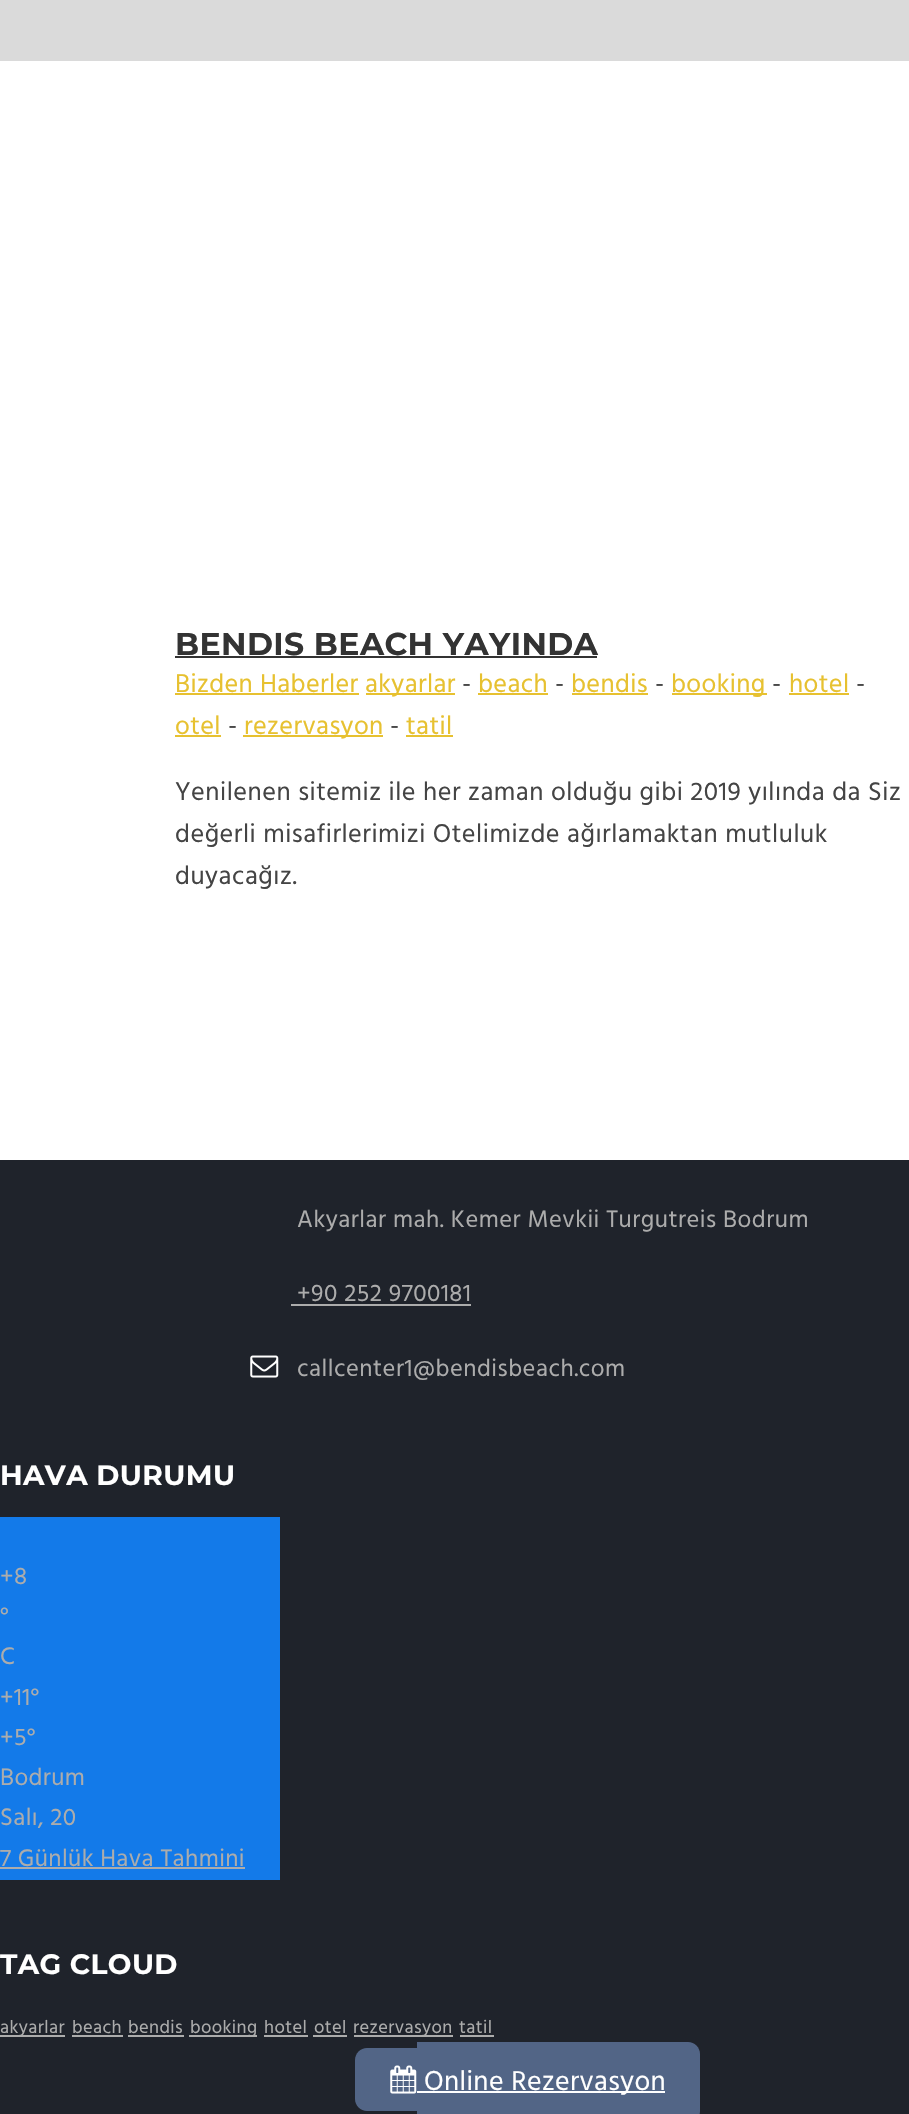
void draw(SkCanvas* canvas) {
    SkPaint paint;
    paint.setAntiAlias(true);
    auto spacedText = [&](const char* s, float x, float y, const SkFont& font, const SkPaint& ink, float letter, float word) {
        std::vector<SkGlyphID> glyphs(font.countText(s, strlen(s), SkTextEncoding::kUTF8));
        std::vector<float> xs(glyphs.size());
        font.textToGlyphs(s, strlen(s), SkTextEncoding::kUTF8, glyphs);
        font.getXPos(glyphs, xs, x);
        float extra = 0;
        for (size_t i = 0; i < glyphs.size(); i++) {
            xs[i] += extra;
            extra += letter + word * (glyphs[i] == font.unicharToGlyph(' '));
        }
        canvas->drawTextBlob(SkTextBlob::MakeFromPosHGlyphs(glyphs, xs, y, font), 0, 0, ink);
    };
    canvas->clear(0xFFFFFFFF);
    paint.setColor(0xFFDADADA);
    canvas->drawRect(SkRect::MakeXYWH(0, 0, 909, 61), paint);
    SkFont font1(fontMgr->matchFamilyStyle("Montserrat", SkFontStyle::Bold()), 31.5f);
    font1.setSubpixel(true);
    paint.setColor(0xFF333333);
    spacedText("BENDIS BEACH YAYINDA", 175, 655, font1, paint, 0.4f, 0);
    canvas->drawRect(SkRect::MakeXYWH(175, 656, 422, 2), paint);
    SkFont font2(fontMgr->matchFamilyStyle("Hind", SkFontStyle::Normal()), 26.25f);
    font2.setSubpixel(true);
    paint.setColor(0xFFE7C130);
    spacedText("Bizden Haberler", 175, 692, font2, paint, 0.4f, 0);
    canvas->drawRect(SkRect::MakeXYWH(175, 693, 184, 2), paint);
    canvas->drawRect(SkRect::MakeXYWH(366, 693, 89, 2), paint);
    spacedText("akyarlar", 365, 692, font2, paint, 0.4f, 0);
    paint.setColor(0xFF444444);
    spacedText("-", 462, 692, font2, paint, 0.4f, 0);
    paint.setColor(0xFFE7C130);
    spacedText("beach", 478, 692, font2, paint, 0.4f, 0);
    canvas->drawRect(SkRect::MakeXYWH(478, 693, 70, 2), paint);
    paint.setColor(0xFF444444);
    spacedText("-", 555, 692, font2, paint, 0.4f, 0);
    paint.setColor(0xFFE7C130);
    spacedText("bendis", 571, 692, font2, paint, 0.4f, 0);
    canvas->drawRect(SkRect::MakeXYWH(572, 693, 76, 2), paint);
    paint.setColor(0xFF444444);
    spacedText("-", 655, 692, font2, paint, 0.4f, 0);
    paint.setColor(0xFFE7C130);
    canvas->drawRect(SkRect::MakeXYWH(672, 693, 95, 2), paint);
    spacedText("booking", 671, 692, font2, paint, 0.4f, 0);
    paint.setColor(0xFF444444);
    spacedText("-", 772, 692, font2, paint, 0.4f, 0);
    paint.setColor(0xFFE7C130);
    spacedText("hotel", 789, 692, font2, paint, 0.4f, 0);
    canvas->drawRect(SkRect::MakeXYWH(789, 693, 60, 2), paint);
    paint.setColor(0xFF444444);
    spacedText("-", 856, 692, font2, paint, 0.4f, 0);
    paint.setColor(0xFFE7C130);
    spacedText("otel", 175, 734, font2, paint, 0.4f, 0);
    canvas->drawRect(SkRect::MakeXYWH(175, 735, 46, 2), paint);
    paint.setColor(0xFF444444);
    spacedText("-", 228, 734, font2, paint, 0.4f, 0);
    paint.setColor(0xFFE7C130);
    canvas->drawRect(SkRect::MakeXYWH(243, 735, 140, 2), paint);
    spacedText("rezervasyon", 244, 734, font2, paint, 0.4f, 0);
    paint.setColor(0xFF444444);
    spacedText("-", 390, 734, font2, paint, 0.4f, 0);
    paint.setColor(0xFFE7C130);
    spacedText("tatil", 406, 734, font2, paint, 0.4f, 0);
    canvas->drawRect(SkRect::MakeXYWH(406, 735, 47, 2), paint);
    paint.setColor(0xFF444444);
    spacedText("Yenilenen sitemiz ile her zaman olduğu gibi 2019 yılında da Siz", 175, 800, font2, paint, 0.53f, 0);
    spacedText("değerli misafirlerimizi Otelimizde ağırlamaktan mutluluk", 175, 842, font2, paint, 0.53f, 0);
    spacedText("duyacağız.", 175, 884, font2, paint, 0.53f, 0);
    paint.setColor(0xFF1F232B);
    canvas->drawRect(SkRect::MakeXYWH(0, 1160, 909, 954), paint);
    SkFont font3(fontMgr->matchFamilyStyle("Hind", SkFontStyle::Normal()), 24.5f);
    font3.setSubpixel(true);
    paint.setColor(0xFFACACAC);
    spacedText("Akyarlar mah. Kemer Mevkii Turgutreis Bodrum", 297, 1227, font3, paint, 0.5f, 0);
    spacedText("+90 252 9700181", 297, 1301, font3, paint, 0.5f, 0);
    canvas->drawRect(SkRect::MakeXYWH(291, 1304, 180, 2), paint);
    canvas->drawImageRect(SkImages::DeferredFromEncodedData(SkData::MakeFromFileName("img1.png")), SkRect::MakeXYWH(250, 1355, 29, 23), SkSamplingOptions());
    spacedText("callcenter1@bendisbeach.com", 297, 1376, font3, paint, 0.5f, 0);
    SkFont font4(fontMgr->matchFamilyStyle("Montserrat", SkFontStyle::Bold()), 28);
    font4.setSubpixel(true);
    paint.setColor(0xFFFFFFFF);
    spacedText("HAVA DURUMU", 0, 1485, font4, paint, 0.4f, 0);
    paint.setColor(0xFF137AE9);
    canvas->drawRect(SkRect::MakeXYWH(0, 1517, 280, 363), paint);
    paint.setColor(0xFFACACAC);
    spacedText("+8", 0, 1584, font3, paint, 0.4f, 0);
    spacedText("°", 0, 1624, font3, paint, 0.4f, 0);
    spacedText("C", 0, 1664, font3, paint, 0.4f, 0);
    spacedText("+11°", 0, 1705, font3, paint, 0.4f, 0);
    spacedText("+5°", 0, 1745, font3, paint, 0.4f, 0);
    spacedText("Bodrum", 0, 1785, font3, paint, 0.4f, 0);
    spacedText("Salı, 20", 0, 1825, font3, paint, 0.4f, 0);
    spacedText("7 Günlük Hava Tahmini", 0, 1866, font3, paint, 0.4f, 0);
    canvas->drawRect(SkRect::MakeXYWH(0, 1867, 245, 2), paint);
    paint.setColor(0xFFFFFFFF);
    spacedText("TAG CLOUD", 0, 1974, font4, paint, 0.4f, 0);
    paint.setColor(0xFFACACAC);
    canvas->drawRect(SkRect::MakeXYWH(0, 2035, 65, 2), paint);
    SkFont font5(fontMgr->matchFamilyStyle("Hind", SkFontStyle::Normal()), 18.5f);
    font5.setSubpixel(true);
    spacedText("akyarlar", 0, 2033, font5, paint, 0.4f, 0);
    spacedText("beach", 72, 2033, font5, paint, 0.4f, 0);
    canvas->drawRect(SkRect::MakeXYWH(72, 2035, 51, 2), paint);
    spacedText("bendis", 128, 2033, font5, paint, 0.4f, 0);
    canvas->drawRect(SkRect::MakeXYWH(128, 2035, 56, 2), paint);
    canvas->drawRect(SkRect::MakeXYWH(189, 2035, 68, 2), paint);
    spacedText("booking", 190, 2033, font5, paint, 0.4f, 0);
    spacedText("hotel", 264, 2033, font5, paint, 0.4f, 0);
    canvas->drawRect(SkRect::MakeXYWH(264, 2035, 44, 2), paint);
    spacedText("otel", 314, 2033, font5, paint, 0.4f, 0);
    canvas->drawRect(SkRect::MakeXYWH(313, 2035, 34, 2), paint);
    canvas->drawRect(SkRect::MakeXYWH(354, 2035, 99, 2), paint);
    spacedText("rezervasyon", 353, 2033, font5, paint, 0.4f, 0);
    spacedText("tatil", 459, 2033, font5, paint, 0.4f, 0);
    canvas->drawRect(SkRect::MakeXYWH(460, 2035, 34, 2), paint);
    paint.setColor(0xFF526586);
    canvas->drawPath(SkPathBuilder().moveTo(367, 2048).lineTo(417, 2048).lineTo(417, 2111).lineTo(367, 2111).cubicTo(360.5f, 2111, 355, 2105.5f, 355, 2099).lineTo(355, 2060).cubicTo(355, 2053.5f, 360.5f, 2048, 367, 2048).close().detach(), paint);
    canvas->drawPath(SkPathBuilder().moveTo(417, 2042).lineTo(688, 2042).cubicTo(694.5f, 2042, 700, 2047.5f, 700, 2054).lineTo(700, 2111).cubicTo(700, 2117.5f, 694.5f, 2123, 688, 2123).lineTo(417, 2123).close().detach(), paint);
    canvas->drawImageRect(SkImages::DeferredFromEncodedData(SkData::MakeFromFileName("img2.png")), SkRect::MakeXYWH(390, 2065, 27, 29), SkSamplingOptions());
    paint.setColor(0xFFFFFFFF);
    canvas->drawRect(SkRect::MakeXYWH(417, 2091, 248, 2), paint);
    SkFont font6(fontMgr->matchFamilyStyle("Hind", SkFontStyle::Normal()), 28);
    font6.setSubpixel(true);
    spacedText("Online Rezervasyon", 424, 2090, font6, paint, 0.4f, 0);
}
